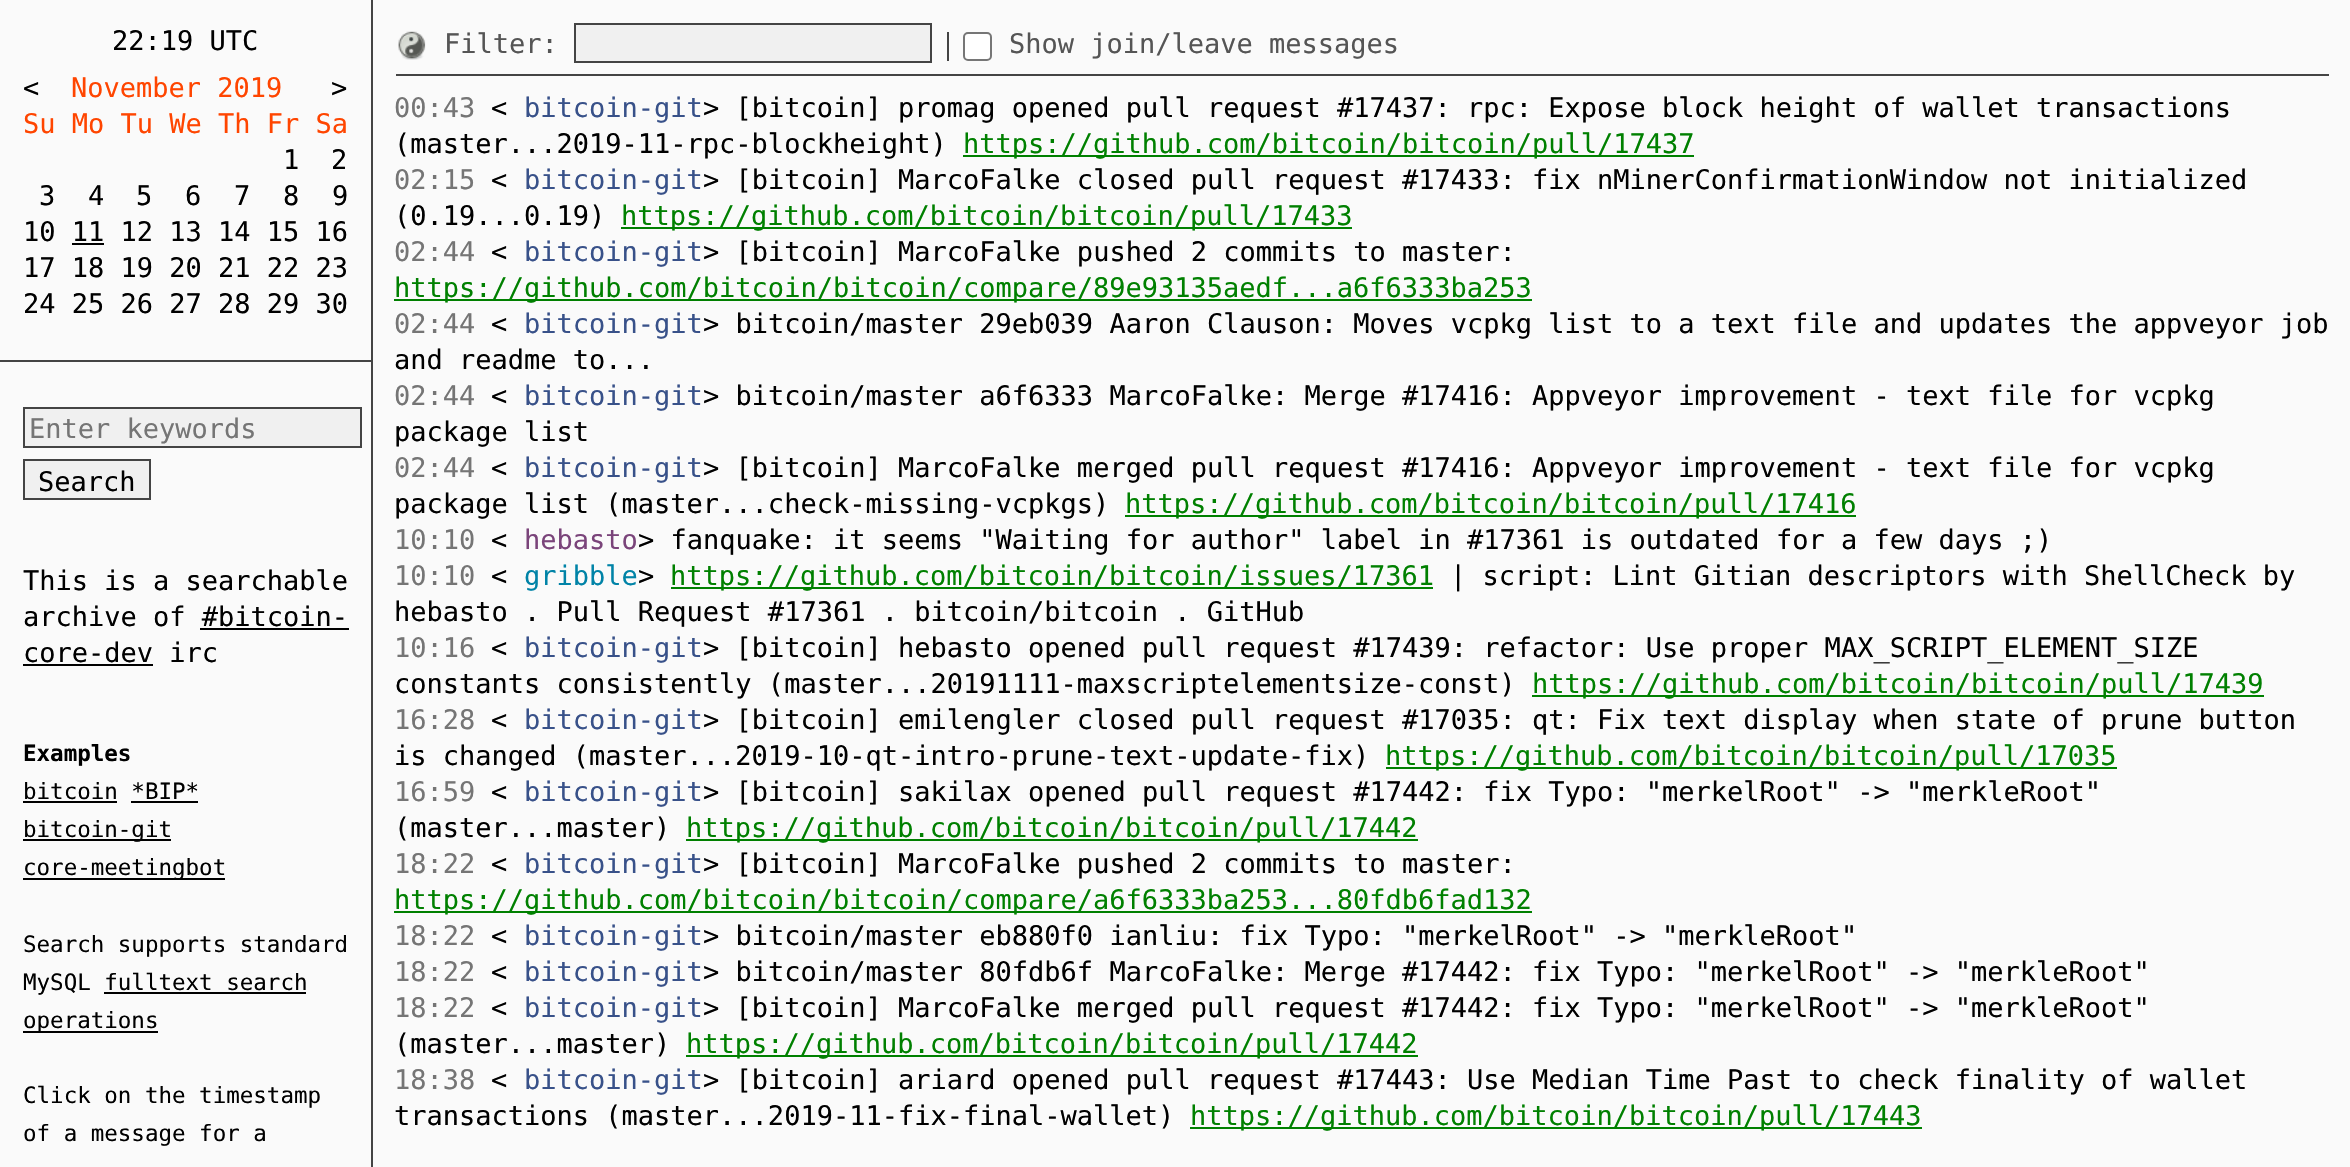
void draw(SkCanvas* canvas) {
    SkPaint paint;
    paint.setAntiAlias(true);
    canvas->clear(0xFFFAFAFA);
    paint.setColor(0xFF444444);
    canvas->drawRect(SkRect::MakeXYWH(371, 0, 2, 1167), paint);
    SkFont font1(fontMgr->matchFamilyStyle("DejaVu Sans Mono", SkFontStyle::Normal()), 27);
    font1.setSubpixel(true);
    paint.setColor(0xFF000000);
    canvas->drawString("22:19 UTC", 112, 50, font1, paint);
    canvas->drawString("<", 23, 97, font1, paint);
    paint.setColor(0xFFFF4500);
    canvas->drawString("November 2019", 71, 97, font1, paint);
    paint.setColor(0xFF000000);
    canvas->drawString(">", 331, 97, font1, paint);
    paint.setColor(0xFFFF4500);
    canvas->drawString("Su Mo Tu We Th Fr Sa", 23, 133, font1, paint);
    paint.setColor(0xFF000000);
    canvas->drawString("1", 283, 169, font1, paint);
    canvas->drawString("2", 331, 169, font1, paint);
    canvas->drawString("3", 39, 205, font1, paint);
    canvas->drawString("4", 88, 205, font1, paint);
    canvas->drawString("5", 136, 205, font1, paint);
    canvas->drawString("6", 185, 205, font1, paint);
    canvas->drawString("7", 234, 205, font1, paint);
    canvas->drawString("8", 283, 205, font1, paint);
    canvas->drawString("9", 332, 205, font1, paint);
    canvas->drawString("10 11 12 13 14 15 16", 23, 241, font1, paint);
    canvas->drawRect(SkRect::MakeXYWH(72, 243, 32, 2), paint);
    canvas->drawString("17 18 19 20 21 22 23", 23, 277, font1, paint);
    canvas->drawString("24 25 26 27 28 29 30", 23, 313, font1, paint);
    paint.setColor(0xFF444444);
    canvas->drawRect(SkRect::MakeXYWH(0, 360, 371, 2), paint);
    paint.setColor(0xFFF0F0F0);
    canvas->drawRect(SkRect::MakeXYWH(24, 408, 337, 39), paint);
    paint.setStyle(SkPaint::kStroke_Style);
    paint.setStrokeWidth(2);
    paint.setColor(0xFF444444);
    canvas->drawRect(SkRect::MakeXYWH(24, 408, 337, 39), paint);
    paint.setStyle(SkPaint::kFill_Style);
    paint.setColor(0xFF757575);
    canvas->drawString("Enter keywords", 29, 438, font1, paint);
    paint.setColor(0xFFF0F0F0);
    canvas->drawRect(SkRect::MakeXYWH(24, 460, 126, 39), paint);
    paint.setStyle(SkPaint::kStroke_Style);
    paint.setColor(0xFF444444);
    canvas->drawRect(SkRect::MakeXYWH(24, 460, 126, 39), paint);
    paint.setStyle(SkPaint::kFill_Style);
    paint.setColor(0xFF000000);
    canvas->drawString("Search", 38, 491, font1, paint);
    canvas->drawString("This is a searchable", 23, 590, font1, paint);
    canvas->drawString("archive of #bitcoin-", 23, 626, font1, paint);
    canvas->drawString("core-dev irc", 23, 662, font1, paint);
    canvas->drawRect(SkRect::MakeXYWH(200, 628, 149, 2), paint);
    canvas->drawRect(SkRect::MakeXYWH(23, 664, 130, 2), paint);
    SkFont font2(fontMgr->matchFamilyStyle("DejaVu Sans Mono", SkFontStyle::Bold()), 22.5f);
    font2.setSubpixel(true);
    canvas->drawString("Examples", 23, 761, font2, paint);
    SkFont font3(fontMgr->matchFamilyStyle("DejaVu Sans Mono", SkFontStyle::Normal()), 22.5f);
    font3.setSubpixel(true);
    canvas->drawString("bitcoin *BIP*", 23, 799, font3, paint);
    canvas->drawRect(SkRect::MakeXYWH(23, 801, 94, 2), paint);
    canvas->drawRect(SkRect::MakeXYWH(131, 801, 67, 2), paint);
    canvas->drawRect(SkRect::MakeXYWH(23, 839, 148, 2), paint);
    canvas->drawString("bitcoin-git", 23, 837, font3, paint);
    canvas->drawRect(SkRect::MakeXYWH(23, 878, 202, 2), paint);
    canvas->drawString("core-meetingbot", 23, 875, font3, paint);
    canvas->drawString("Search supports standard", 23, 952, font3, paint);
    canvas->drawString("MySQL fulltext search", 23, 990, font3, paint);
    canvas->drawRect(SkRect::MakeXYWH(104, 992, 202, 2), paint);
    canvas->drawRect(SkRect::MakeXYWH(23, 1031, 135, 2), paint);
    canvas->drawString("operations", 23, 1028, font3, paint);
    canvas->drawString("Click on the timestamp", 23, 1103, font3, paint);
    canvas->drawString("of a message for a", 23, 1141, font3, paint);
    paint.setColor(0xFF444444);
    canvas->drawRect(SkRect::MakeXYWH(396, 74, 1933, 2), paint);
    canvas->drawImageRect(SkImages::DeferredFromEncodedData(SkData::MakeFromFileName("img1.png")), SkRect::MakeXYWH(398, 31, 28, 29), SkSamplingOptions());
    paint.setColor(0xFF555555);
    canvas->drawString("Filter:", 444, 53, font1, paint);
    paint.setColor(0xFFF0F0F0);
    canvas->drawRect(SkRect::MakeXYWH(575, 24, 356, 38), paint);
    paint.setStyle(SkPaint::kStroke_Style);
    paint.setColor(0xFF444444);
    canvas->drawRect(SkRect::MakeXYWH(575, 24, 356, 38), paint);
    paint.setStyle(SkPaint::kFill_Style);
    canvas->drawRect(SkRect::MakeXYWH(947, 32, 2, 29), paint);
    paint.setColor(0xFFFFFFFF);
    canvas->drawRoundRect(SkRect::MakeXYWH(964, 33, 27, 27), 4, 4, paint);
    paint.setStyle(SkPaint::kStroke_Style);
    paint.setColor(0xFF767676);
    canvas->drawRoundRect(SkRect::MakeXYWH(964, 33, 27, 27), 4, 4, paint);
    paint.setStyle(SkPaint::kFill_Style);
    paint.setColor(0xFF555555);
    canvas->drawString("Show join/leave messages", 1009, 53, font1, paint);
    paint.setColor(0xFF757575);
    canvas->drawString("00:43", 394, 117, font1, paint);
    paint.setColor(0xFF000000);
    canvas->drawString("<", 491, 117, font1, paint);
    paint.setColor(0xFF385189);
    canvas->drawString("bitcoin-git", 524, 117, font1, paint);
    paint.setColor(0xFF000000);
    canvas->drawString("> [bitcoin] promag opened pull request #17437: rpc: Expose block height of wallet transactions", 703, 117, font1, paint);
    canvas->drawString("(master...2019-11-rpc-blockheight)", 394, 153, font1, paint);
    paint.setColor(0xFF008000);
    canvas->drawRect(SkRect::MakeXYWH(963, 155, 731, 2), paint);
    canvas->drawString("https://github.com/bitcoin/bitcoin/pull/17437", 963, 153, font1, paint);
    paint.setColor(0xFF757575);
    canvas->drawString("02:15", 394, 189, font1, paint);
    paint.setColor(0xFF000000);
    canvas->drawString("<", 491, 189, font1, paint);
    paint.setColor(0xFF385189);
    canvas->drawString("bitcoin-git", 524, 189, font1, paint);
    paint.setColor(0xFF000000);
    canvas->drawString("> [bitcoin] MarcoFalke closed pull request #17433: fix nMinerConfirmationWindow not initialized", 703, 189, font1, paint);
    canvas->drawString("(0.19...0.19)", 394, 225, font1, paint);
    paint.setColor(0xFF008000);
    canvas->drawRect(SkRect::MakeXYWH(621, 227, 731, 2), paint);
    canvas->drawString("https://github.com/bitcoin/bitcoin/pull/17433", 621, 225, font1, paint);
    paint.setColor(0xFF757575);
    canvas->drawString("02:44", 394, 261, font1, paint);
    paint.setColor(0xFF000000);
    canvas->drawString("<", 491, 261, font1, paint);
    paint.setColor(0xFF385189);
    canvas->drawString("bitcoin-git", 524, 261, font1, paint);
    paint.setColor(0xFF000000);
    canvas->drawString("> [bitcoin] MarcoFalke pushed 2 commits to master:", 703, 261, font1, paint);
    paint.setColor(0xFF008000);
    canvas->drawRect(SkRect::MakeXYWH(394, 299, 1138, 2), paint);
    canvas->drawString("https://github.com/bitcoin/bitcoin/compare/89e93135aedf...a6f6333ba253", 394, 297, font1, paint);
    paint.setColor(0xFF757575);
    canvas->drawString("02:44", 394, 333, font1, paint);
    paint.setColor(0xFF000000);
    canvas->drawString("<", 491, 333, font1, paint);
    paint.setColor(0xFF385189);
    canvas->drawString("bitcoin-git", 524, 333, font1, paint);
    paint.setColor(0xFF000000);
    canvas->drawString("> bitcoin/master 29eb039 Aaron Clauson: Moves vcpkg list to a text file and updates the appveyor job", 703, 333, font1, paint);
    canvas->drawString("and readme to...", 394, 369, font1, paint);
    paint.setColor(0xFF757575);
    canvas->drawString("02:44", 394, 405, font1, paint);
    paint.setColor(0xFF000000);
    canvas->drawString("<", 491, 405, font1, paint);
    paint.setColor(0xFF385189);
    canvas->drawString("bitcoin-git", 524, 405, font1, paint);
    paint.setColor(0xFF000000);
    canvas->drawString("> bitcoin/master a6f6333 MarcoFalke: Merge #17416: Appveyor improvement - text file for vcpkg", 703, 405, font1, paint);
    canvas->drawString("package list", 394, 441, font1, paint);
    paint.setColor(0xFF757575);
    canvas->drawString("02:44", 394, 477, font1, paint);
    paint.setColor(0xFF000000);
    canvas->drawString("<", 491, 477, font1, paint);
    paint.setColor(0xFF385189);
    canvas->drawString("bitcoin-git", 524, 477, font1, paint);
    paint.setColor(0xFF000000);
    canvas->drawString("> [bitcoin] MarcoFalke merged pull request #17416: Appveyor improvement - text file for vcpkg", 703, 477, font1, paint);
    canvas->drawString("package list (master...check-missing-vcpkgs)", 394, 513, font1, paint);
    paint.setColor(0xFF008000);
    canvas->drawRect(SkRect::MakeXYWH(1125, 515, 731, 2), paint);
    canvas->drawString("https://github.com/bitcoin/bitcoin/pull/17416", 1125, 513, font1, paint);
    paint.setColor(0xFF757575);
    canvas->drawString("10:10", 394, 549, font1, paint);
    paint.setColor(0xFF000000);
    canvas->drawString("<", 491, 549, font1, paint);
    paint.setColor(0xFF7A447A);
    canvas->drawString("hebasto", 524, 549, font1, paint);
    paint.setColor(0xFF000000);
    canvas->drawString("> fanquake: it seems \"Waiting for author\" label in #17361 is outdated for a few days ;)", 638, 549, font1, paint);
    paint.setColor(0xFF757575);
    canvas->drawString("10:10", 394, 585, font1, paint);
    paint.setColor(0xFF000000);
    canvas->drawString("<", 491, 585, font1, paint);
    paint.setColor(0xFF0083A7);
    canvas->drawString("gribble", 524, 585, font1, paint);
    paint.setColor(0xFF000000);
    canvas->drawString(">", 638, 585, font1, paint);
    paint.setColor(0xFF008000);
    canvas->drawRect(SkRect::MakeXYWH(671, 587, 762, 2), paint);
    canvas->drawString("https://github.com/bitcoin/bitcoin/issues/17361", 670, 585, font1, paint);
    paint.setColor(0xFF000000);
    canvas->drawString("| script: Lint Gitian descriptors with ShellCheck by", 1450, 585, font1, paint);
    canvas->drawString("hebasto . Pull Request #17361 . bitcoin/bitcoin . GitHub", 394, 621, font1, paint);
    paint.setColor(0xFF757575);
    canvas->drawString("10:16", 394, 657, font1, paint);
    paint.setColor(0xFF000000);
    canvas->drawString("<", 491, 657, font1, paint);
    paint.setColor(0xFF385189);
    canvas->drawString("bitcoin-git", 524, 657, font1, paint);
    paint.setColor(0xFF000000);
    canvas->drawString("> [bitcoin] hebasto opened pull request #17439: refactor: Use proper MAX_SCRIPT_ELEMENT_SIZE", 703, 657, font1, paint);
    canvas->drawString("constants consistently (master...20191111-maxscriptelementsize-const)", 394, 693, font1, paint);
    paint.setColor(0xFF008000);
    canvas->drawRect(SkRect::MakeXYWH(1532, 695, 732, 2), paint);
    canvas->drawString("https://github.com/bitcoin/bitcoin/pull/17439", 1532, 693, font1, paint);
    paint.setColor(0xFF757575);
    canvas->drawString("16:28", 394, 729, font1, paint);
    paint.setColor(0xFF000000);
    canvas->drawString("<", 491, 729, font1, paint);
    paint.setColor(0xFF385189);
    canvas->drawString("bitcoin-git", 524, 729, font1, paint);
    paint.setColor(0xFF000000);
    canvas->drawString("> [bitcoin] emilengler closed pull request #17035: qt: Fix text display when state of prune button", 703, 729, font1, paint);
    canvas->drawString("is changed (master...2019-10-qt-intro-prune-text-update-fix)", 394, 765, font1, paint);
    paint.setColor(0xFF008000);
    canvas->drawRect(SkRect::MakeXYWH(1386, 767, 731, 2), paint);
    canvas->drawString("https://github.com/bitcoin/bitcoin/pull/17035", 1385, 765, font1, paint);
    paint.setColor(0xFF757575);
    canvas->drawString("16:59", 394, 801, font1, paint);
    paint.setColor(0xFF000000);
    canvas->drawString("<", 491, 801, font1, paint);
    paint.setColor(0xFF385189);
    canvas->drawString("bitcoin-git", 524, 801, font1, paint);
    paint.setColor(0xFF000000);
    canvas->drawString("> [bitcoin] sakilax opened pull request #17442: fix Typo: \"merkelRoot\" -> \"merkleRoot\"", 703, 801, font1, paint);
    canvas->drawString("(master...master)", 394, 837, font1, paint);
    paint.setColor(0xFF008000);
    canvas->drawRect(SkRect::MakeXYWH(686, 839, 732, 2), paint);
    canvas->drawString("https://github.com/bitcoin/bitcoin/pull/17442", 686, 837, font1, paint);
    paint.setColor(0xFF757575);
    canvas->drawString("18:22", 394, 873, font1, paint);
    paint.setColor(0xFF000000);
    canvas->drawString("<", 491, 873, font1, paint);
    paint.setColor(0xFF385189);
    canvas->drawString("bitcoin-git", 524, 873, font1, paint);
    paint.setColor(0xFF000000);
    canvas->drawString("> [bitcoin] MarcoFalke pushed 2 commits to master:", 703, 873, font1, paint);
    paint.setColor(0xFF008000);
    canvas->drawRect(SkRect::MakeXYWH(394, 911, 1138, 2), paint);
    canvas->drawString("https://github.com/bitcoin/bitcoin/compare/a6f6333ba253...80fdb6fad132", 394, 909, font1, paint);
    paint.setColor(0xFF757575);
    canvas->drawString("18:22", 394, 945, font1, paint);
    paint.setColor(0xFF000000);
    canvas->drawString("<", 491, 945, font1, paint);
    paint.setColor(0xFF385189);
    canvas->drawString("bitcoin-git", 524, 945, font1, paint);
    paint.setColor(0xFF000000);
    canvas->drawString("> bitcoin/master eb880f0 ianliu: fix Typo: \"merkelRoot\" -> \"merkleRoot\"", 703, 945, font1, paint);
    paint.setColor(0xFF757575);
    canvas->drawString("18:22", 394, 981, font1, paint);
    paint.setColor(0xFF000000);
    canvas->drawString("<", 491, 981, font1, paint);
    paint.setColor(0xFF385189);
    canvas->drawString("bitcoin-git", 524, 981, font1, paint);
    paint.setColor(0xFF000000);
    canvas->drawString("> bitcoin/master 80fdb6f MarcoFalke: Merge #17442: fix Typo: \"merkelRoot\" -> \"merkleRoot\"", 703, 981, font1, paint);
    paint.setColor(0xFF757575);
    canvas->drawString("18:22", 394, 1017, font1, paint);
    paint.setColor(0xFF000000);
    canvas->drawString("<", 491, 1017, font1, paint);
    paint.setColor(0xFF385189);
    canvas->drawString("bitcoin-git", 524, 1017, font1, paint);
    paint.setColor(0xFF000000);
    canvas->drawString("> [bitcoin] MarcoFalke merged pull request #17442: fix Typo: \"merkelRoot\" -> \"merkleRoot\"", 703, 1017, font1, paint);
    canvas->drawString("(master...master)", 394, 1053, font1, paint);
    paint.setColor(0xFF008000);
    canvas->drawRect(SkRect::MakeXYWH(686, 1055, 732, 2), paint);
    canvas->drawString("https://github.com/bitcoin/bitcoin/pull/17442", 686, 1053, font1, paint);
    paint.setColor(0xFF757575);
    canvas->drawString("18:38", 394, 1089, font1, paint);
    paint.setColor(0xFF000000);
    canvas->drawString("<", 491, 1089, font1, paint);
    paint.setColor(0xFF385189);
    canvas->drawString("bitcoin-git", 524, 1089, font1, paint);
    paint.setColor(0xFF000000);
    canvas->drawString("> [bitcoin] ariard opened pull request #17443: Use Median Time Past to check finality of wallet", 703, 1089, font1, paint);
    canvas->drawString("transactions (master...2019-11-fix-final-wallet)", 394, 1125, font1, paint);
    paint.setColor(0xFF008000);
    canvas->drawRect(SkRect::MakeXYWH(1190, 1127, 732, 2), paint);
    canvas->drawString("https://github.com/bitcoin/bitcoin/pull/17443", 1190, 1125, font1, paint);
}
